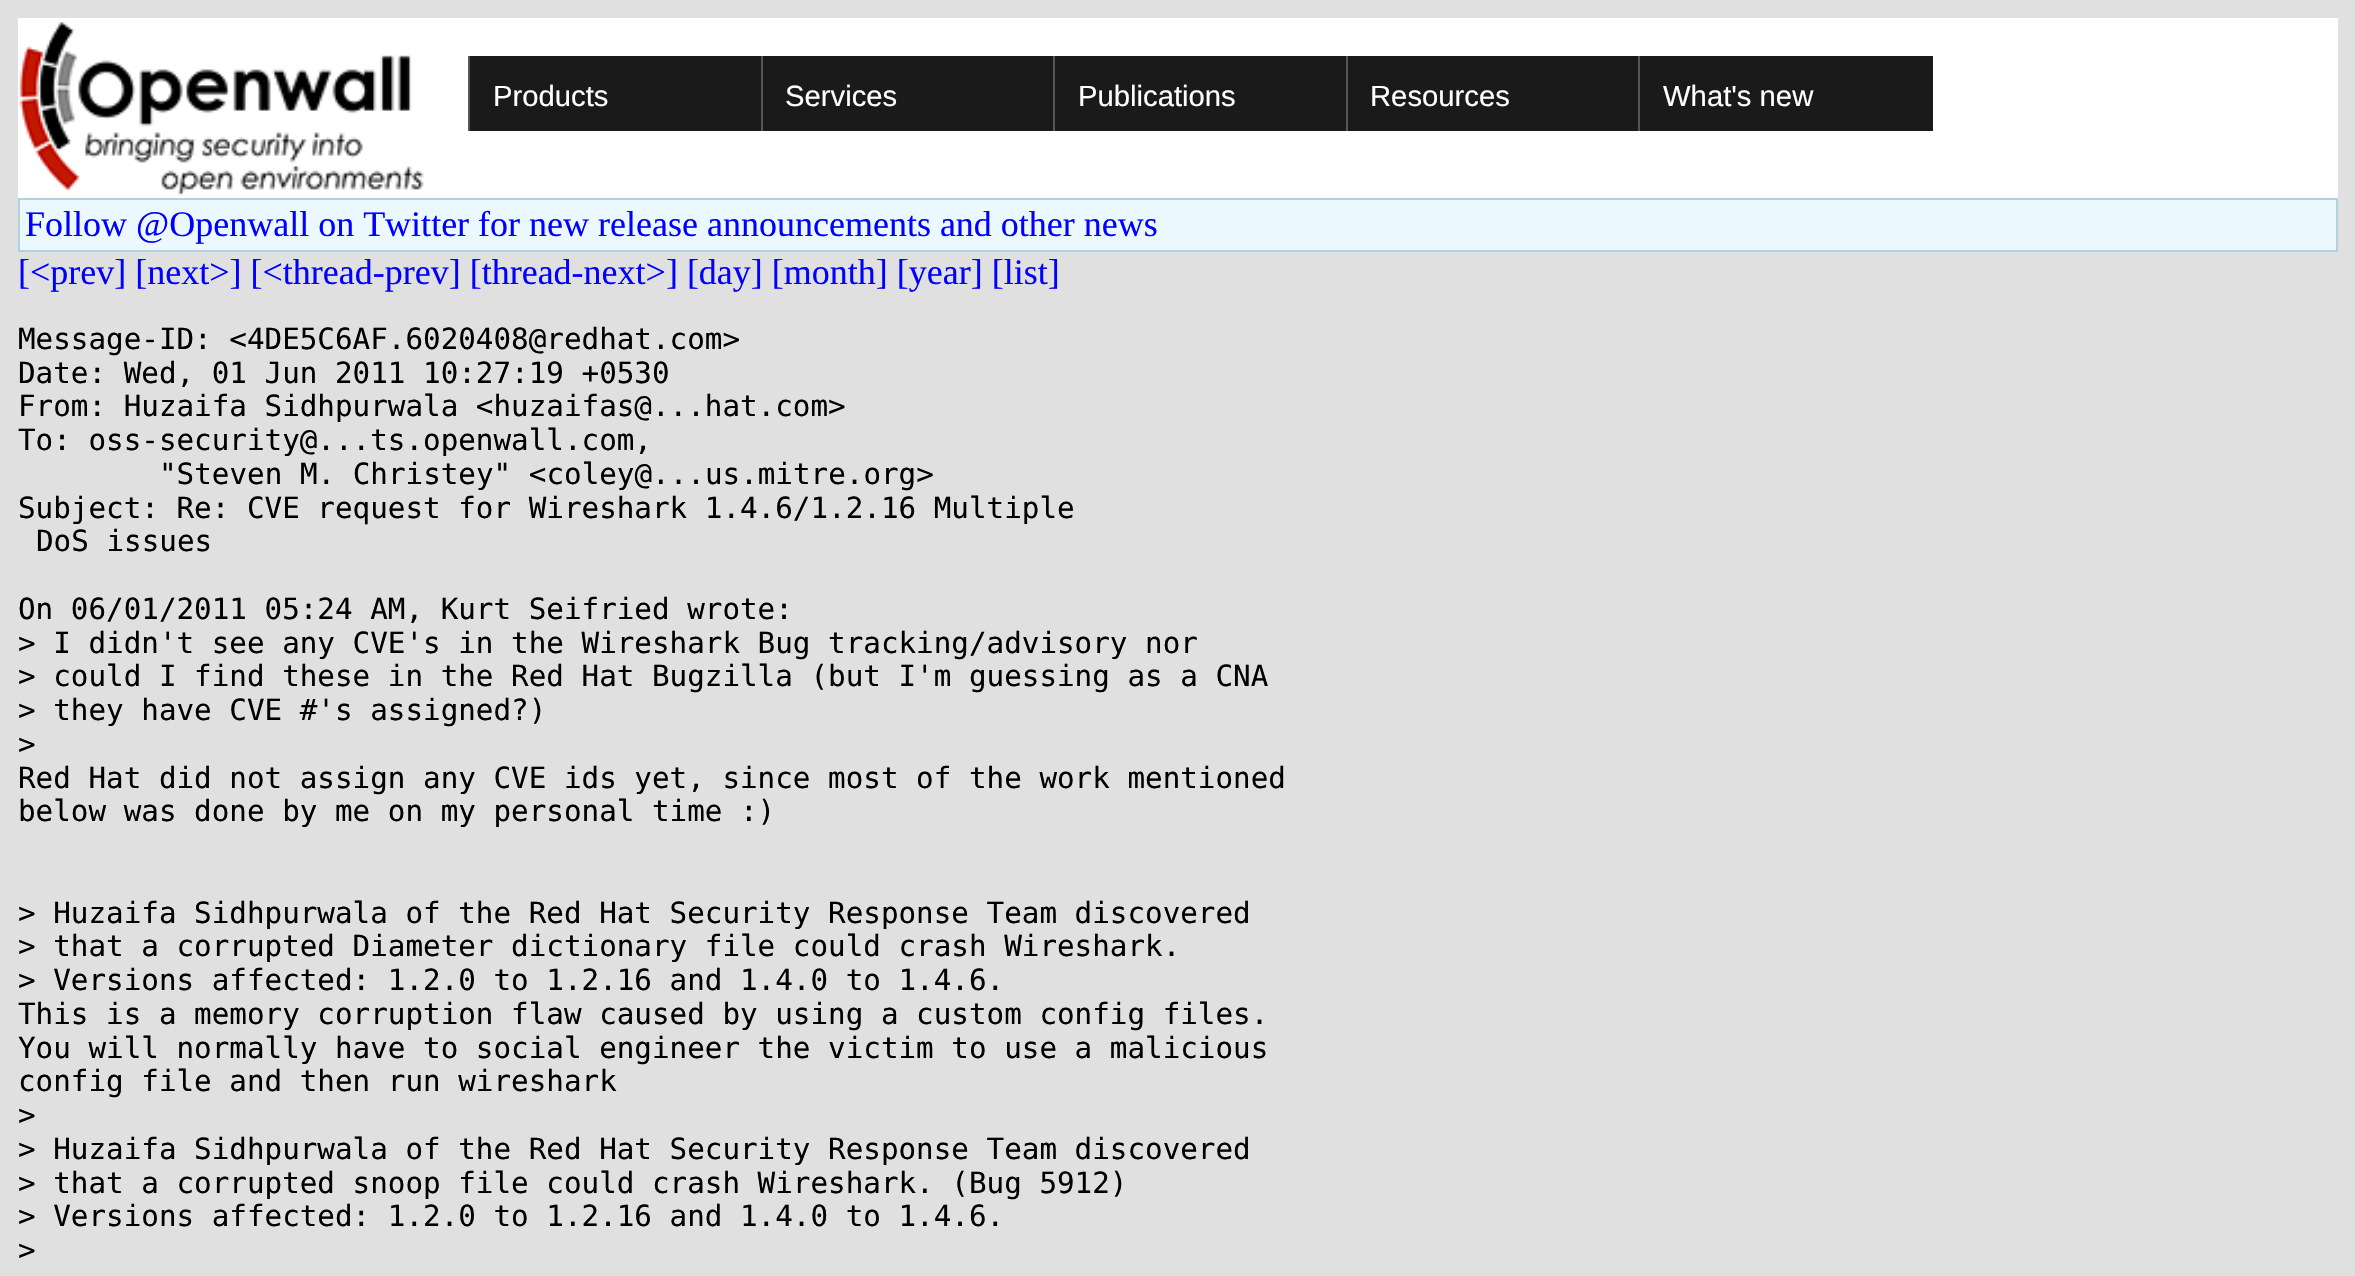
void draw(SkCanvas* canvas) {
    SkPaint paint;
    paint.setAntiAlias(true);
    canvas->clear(0xFFE0E0E0);
    paint.setColor(0xFFFFFFFF);
    canvas->drawRect(SkRect::MakeXYWH(18, 18, 2320, 180), paint);
    canvas->drawImageRect(SkImages::DeferredFromEncodedData(SkData::MakeFromFileName("img1.png")), SkRect::MakeXYWH(19, 22, 405, 174), SkSamplingOptions());
    paint.setColor(0xFF1A1A1A);
    canvas->drawRect(SkRect::MakeXYWH(470, 56, 291, 75), paint);
    paint.setColor(0xFF555555);
    canvas->drawRect(SkRect::MakeXYWH(468, 56, 2, 75), paint);
    SkFont font1(fontMgr->matchFamilyStyle("Liberation Sans", SkFontStyle::Normal()), 29.25f);
    font1.setSubpixel(true);
    paint.setColor(0xFFFFFFFF);
    canvas->drawString("Products", 493, 106, font1, paint);
    paint.setColor(0xFF1A1A1A);
    canvas->drawRect(SkRect::MakeXYWH(763, 56, 290, 75), paint);
    paint.setColor(0xFF555555);
    canvas->drawRect(SkRect::MakeXYWH(761, 56, 2, 75), paint);
    paint.setColor(0xFFFFFFFF);
    canvas->drawString("Services", 785, 106, font1, paint);
    paint.setColor(0xFF1A1A1A);
    canvas->drawRect(SkRect::MakeXYWH(1055, 56, 291, 75), paint);
    paint.setColor(0xFF555555);
    canvas->drawRect(SkRect::MakeXYWH(1053, 56, 2, 75), paint);
    paint.setColor(0xFFFFFFFF);
    canvas->drawString("Publications", 1078, 106, font1, paint);
    paint.setColor(0xFF1A1A1A);
    canvas->drawRect(SkRect::MakeXYWH(1348, 56, 290, 75), paint);
    paint.setColor(0xFF555555);
    canvas->drawRect(SkRect::MakeXYWH(1346, 56, 2, 75), paint);
    paint.setColor(0xFFFFFFFF);
    canvas->drawString("Resources", 1370, 106, font1, paint);
    paint.setColor(0xFF1A1A1A);
    canvas->drawRect(SkRect::MakeXYWH(1640, 56, 293, 75), paint);
    paint.setColor(0xFF555555);
    canvas->drawRect(SkRect::MakeXYWH(1638, 56, 2, 75), paint);
    paint.setColor(0xFFFFFFFF);
    canvas->drawString("What's new", 1663, 106, font1, paint);
    paint.setColor(0xFFB4D0DC);
    canvas->drawRect(SkRect::MakeXYWH(18, 198, 2320, 54), paint);
    paint.setColor(0xFFECF8FF);
    canvas->drawRect(SkRect::MakeXYWH(20, 200, 2316, 50), paint);
    SkFont font2(fontMgr->matchFamilyStyle("Liberation Serif", SkFontStyle::Normal()), 36);
    font2.setSubpixel(true);
    paint.setColor(0xFF0000FF);
    canvas->drawString("Follow @Openwall on Twitter for new release announcements and other news", 25, 236, font2, paint);
    canvas->drawString("[<prev] [next>] [<thread-prev] [thread-next>] [day] [month] [year] [list]", 18, 284, font2, paint);
    SkFont font3(fontMgr->matchFamilyStyle("DejaVu Sans Mono", SkFontStyle::Normal()), 29.25f);
    font3.setSubpixel(true);
    paint.setColor(0xFF000000);
    canvas->drawString("Message-ID: <4DE5C6AF.6020408@redhat.com>", 18, 349, font3, paint);
    canvas->drawString("Date: Wed, 01 Jun 2011 10:27:19 +0530", 18, 383, font3, paint);
    canvas->drawString("From: Huzaifa Sidhpurwala <huzaifas@...hat.com>", 18, 416, font3, paint);
    canvas->drawString("To: oss-security@...ts.openwall.com,", 18, 450, font3, paint);
    canvas->drawString("\"Steven M. Christey\" <coley@...us.mitre.org>", 159, 484, font3, paint);
    canvas->drawString("Subject: Re: CVE request for Wireshark 1.4.6/1.2.16 Multiple", 18, 518, font3, paint);
    canvas->drawString("DoS issues", 36, 551, font3, paint);
    canvas->drawString("On 06/01/2011 05:24 AM, Kurt Seifried wrote:", 18, 619, font3, paint);
    canvas->drawString("> I didn't see any CVE's in the Wireshark Bug tracking/advisory nor", 18, 653, font3, paint);
    canvas->drawString("> could I find these in the Red Hat Bugzilla (but I'm guessing as a CNA", 18, 686, font3, paint);
    canvas->drawString("> they have CVE #'s assigned?)", 18, 720, font3, paint);
    canvas->drawString(">", 18, 754, font3, paint);
    canvas->drawString("Red Hat did not assign any CVE ids yet, since most of the work mentioned", 18, 788, font3, paint);
    canvas->drawString("below was done by me on my personal time :)", 18, 821, font3, paint);
    canvas->drawString("> Huzaifa Sidhpurwala of the Red Hat Security Response Team discovered", 18, 923, font3, paint);
    canvas->drawString("> that a corrupted Diameter dictionary file could crash Wireshark.", 18, 956, font3, paint);
    canvas->drawString("> Versions affected: 1.2.0 to 1.2.16 and 1.4.0 to 1.4.6.", 18, 990, font3, paint);
    canvas->drawString("This is a memory corruption flaw caused by using a custom config files.", 18, 1024, font3, paint);
    canvas->drawString("You will normally have to social engineer the victim to use a malicious", 18, 1058, font3, paint);
    canvas->drawString("config file and then run wireshark", 18, 1091, font3, paint);
    canvas->drawString(">", 18, 1125, font3, paint);
    canvas->drawString("> Huzaifa Sidhpurwala of the Red Hat Security Response Team discovered", 18, 1159, font3, paint);
    canvas->drawString("> that a corrupted snoop file could crash Wireshark. (Bug 5912)", 18, 1193, font3, paint);
    canvas->drawString("> Versions affected: 1.2.0 to 1.2.16 and 1.4.0 to 1.4.6.", 18, 1226, font3, paint);
    canvas->drawString(">", 18, 1260, font3, paint);
}
